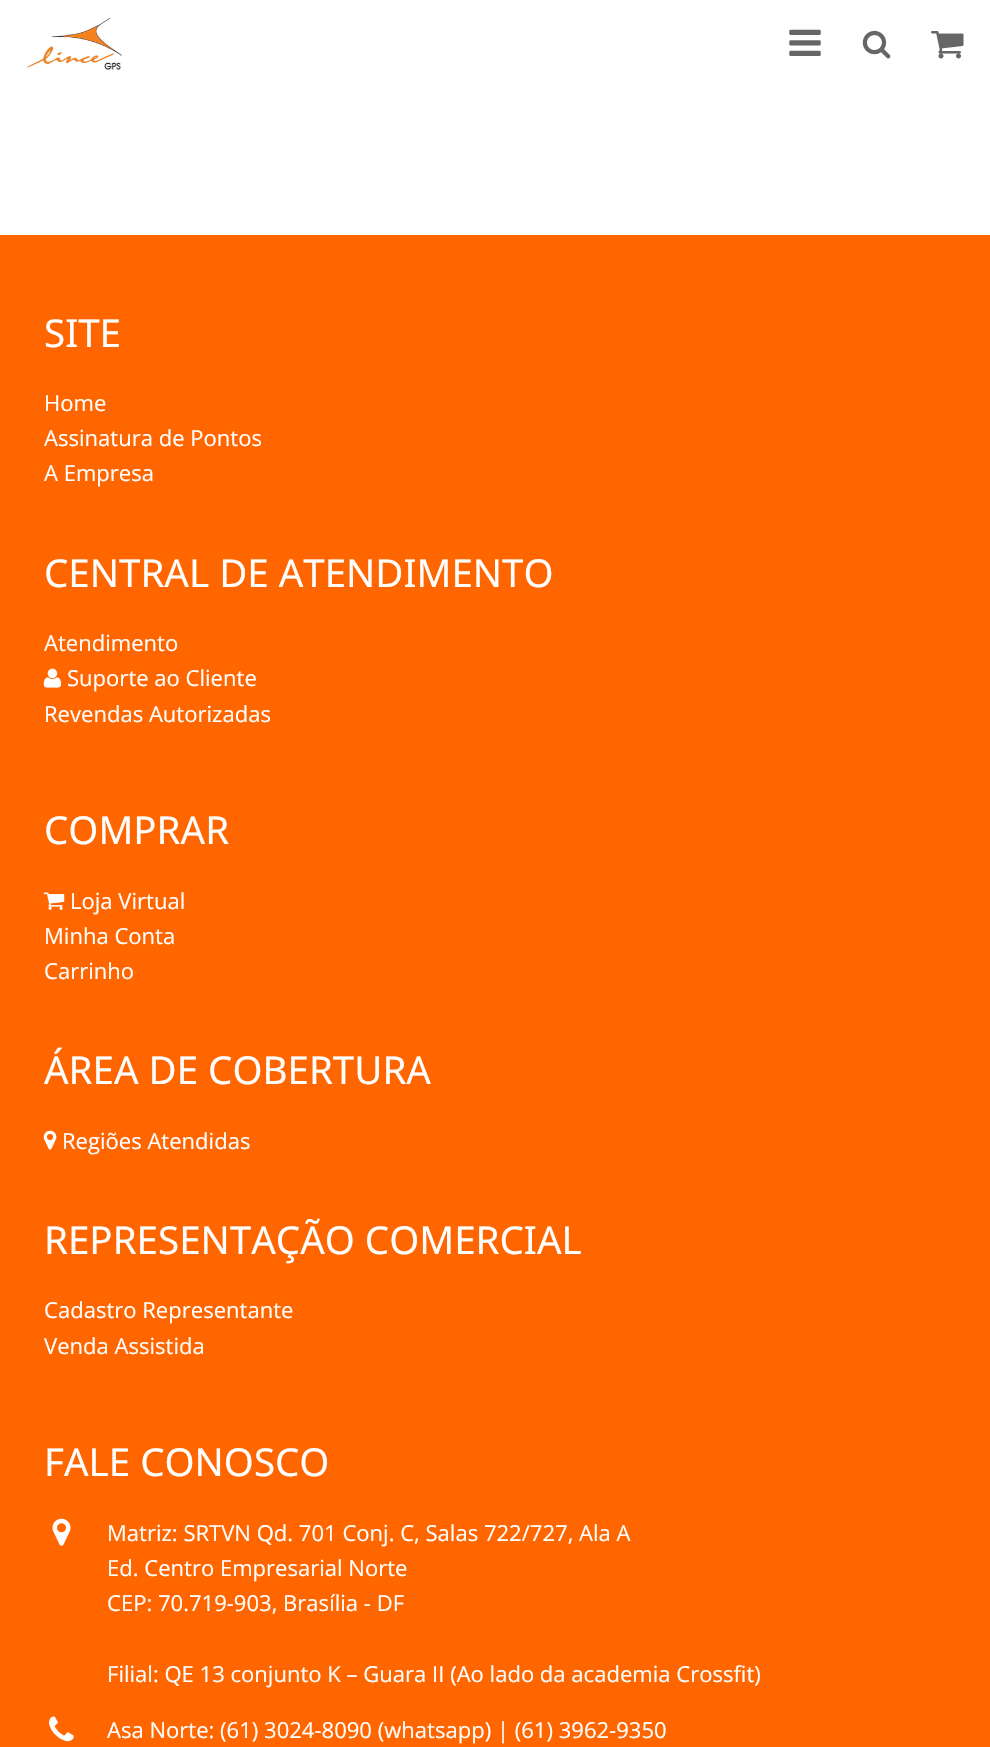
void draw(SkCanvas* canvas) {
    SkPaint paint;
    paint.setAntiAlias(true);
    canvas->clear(0xFFFFFFFF);
    canvas->drawImageRect(SkImages::DeferredFromEncodedData(SkData::MakeFromFileName("img1.png")), SkRect::MakeXYWH(26, 18, 96, 52), SkSamplingOptions());
    canvas->drawImageRect(SkImages::DeferredFromEncodedData(SkData::MakeFromFileName("img2.png")), SkRect::MakeXYWH(789, 29, 32, 27), SkSamplingOptions());
    canvas->drawImageRect(SkImages::DeferredFromEncodedData(SkData::MakeFromFileName("img3.png")), SkRect::MakeXYWH(862, 30, 29, 29), SkSamplingOptions());
    canvas->drawImageRect(SkImages::DeferredFromEncodedData(SkData::MakeFromFileName("img4.png")), SkRect::MakeXYWH(931, 31, 33, 28), SkSamplingOptions());
    paint.setColor(0xFFFF6600);
    canvas->drawRect(SkRect::MakeXYWH(0, 235, 990, 1512), paint);
    SkFont font1(fontMgr->matchFamilyStyle("Noto Sans", SkFontStyle::Normal()), 38.5f);
    font1.setSubpixel(true);
    paint.setColor(0xFFFFFFFF);
    canvas->drawString("SITE", 44, 347, font1, paint);
    SkFont font2(fontMgr->matchFamilyStyle("Open Sans", SkFontStyle::Normal()), 22.05f);
    font2.setSubpixel(true);
    canvas->drawString("Home", 44, 411, font2, paint);
    canvas->drawString("Assinatura de Pontos", 44, 446, font2, paint);
    canvas->drawString("A Empresa", 44, 481, font2, paint);
    canvas->drawString("CENTRAL DE ATENDIMENTO", 44, 587, font1, paint);
    canvas->drawString("Atendimento", 44, 651, font2, paint);
    canvas->drawImageRect(SkImages::DeferredFromEncodedData(SkData::MakeFromFileName("img5.png")), SkRect::MakeXYWH(43, 668, 19, 20), SkSamplingOptions());
    canvas->drawString("Suporte ao Cliente", 67, 686, font2, paint);
    canvas->drawString("Revendas Autorizadas", 44, 722, font2, paint);
    canvas->drawString("COMPRAR", 44, 844, font1, paint);
    canvas->drawImageRect(SkImages::DeferredFromEncodedData(SkData::MakeFromFileName("img6.png")), SkRect::MakeXYWH(43, 892, 22, 18), SkSamplingOptions());
    canvas->drawString("Loja Virtual", 70, 909, font2, paint);
    canvas->drawString("Minha Conta", 44, 944, font2, paint);
    canvas->drawString("Carrinho", 44, 979, font2, paint);
    canvas->drawString("ÁREA DE COBERTURA", 44, 1084, font1, paint);
    canvas->drawImageRect(SkImages::DeferredFromEncodedData(SkData::MakeFromFileName("img7.png")), SkRect::MakeXYWH(43, 1130, 14, 20), SkSamplingOptions());
    canvas->drawString("Regiões Atendidas", 62, 1149, font2, paint);
    canvas->drawString("REPRESENTAÇÃO COMERCIAL", 44, 1254, font1, paint);
    canvas->drawString("Cadastro Representante", 44, 1318, font2, paint);
    canvas->drawString("Venda Assistida", 44, 1354, font2, paint);
    canvas->drawString("FALE CONOSCO", 44, 1476, font1, paint);
    canvas->drawImageRect(SkImages::DeferredFromEncodedData(SkData::MakeFromFileName("img8.png")), SkRect::MakeXYWH(52, 1518, 19, 28), SkSamplingOptions());
    canvas->drawString("Matriz: SRTVN Qd. 701 Conj. C, Salas 722/727, Ala A", 107, 1541, font2, paint);
    canvas->drawString("Ed. Centro Empresarial Norte", 107, 1576, font2, paint);
    canvas->drawString("CEP: 70.719-903, Brasília - DF", 107, 1611, font2, paint);
    canvas->drawString("Filial: QE 13 conjunto K – Guara II (Ao lado da academia Crossfit)", 107, 1682, font2, paint);
    canvas->drawImageRect(SkImages::DeferredFromEncodedData(SkData::MakeFromFileName("img9.png")), SkRect::MakeXYWH(49, 1716, 25, 26), SkSamplingOptions());
    canvas->drawString("Asa Norte: (61) 3024-8090 (whatsapp) | (61) 3962-9350", 107, 1738, font2, paint);
}
